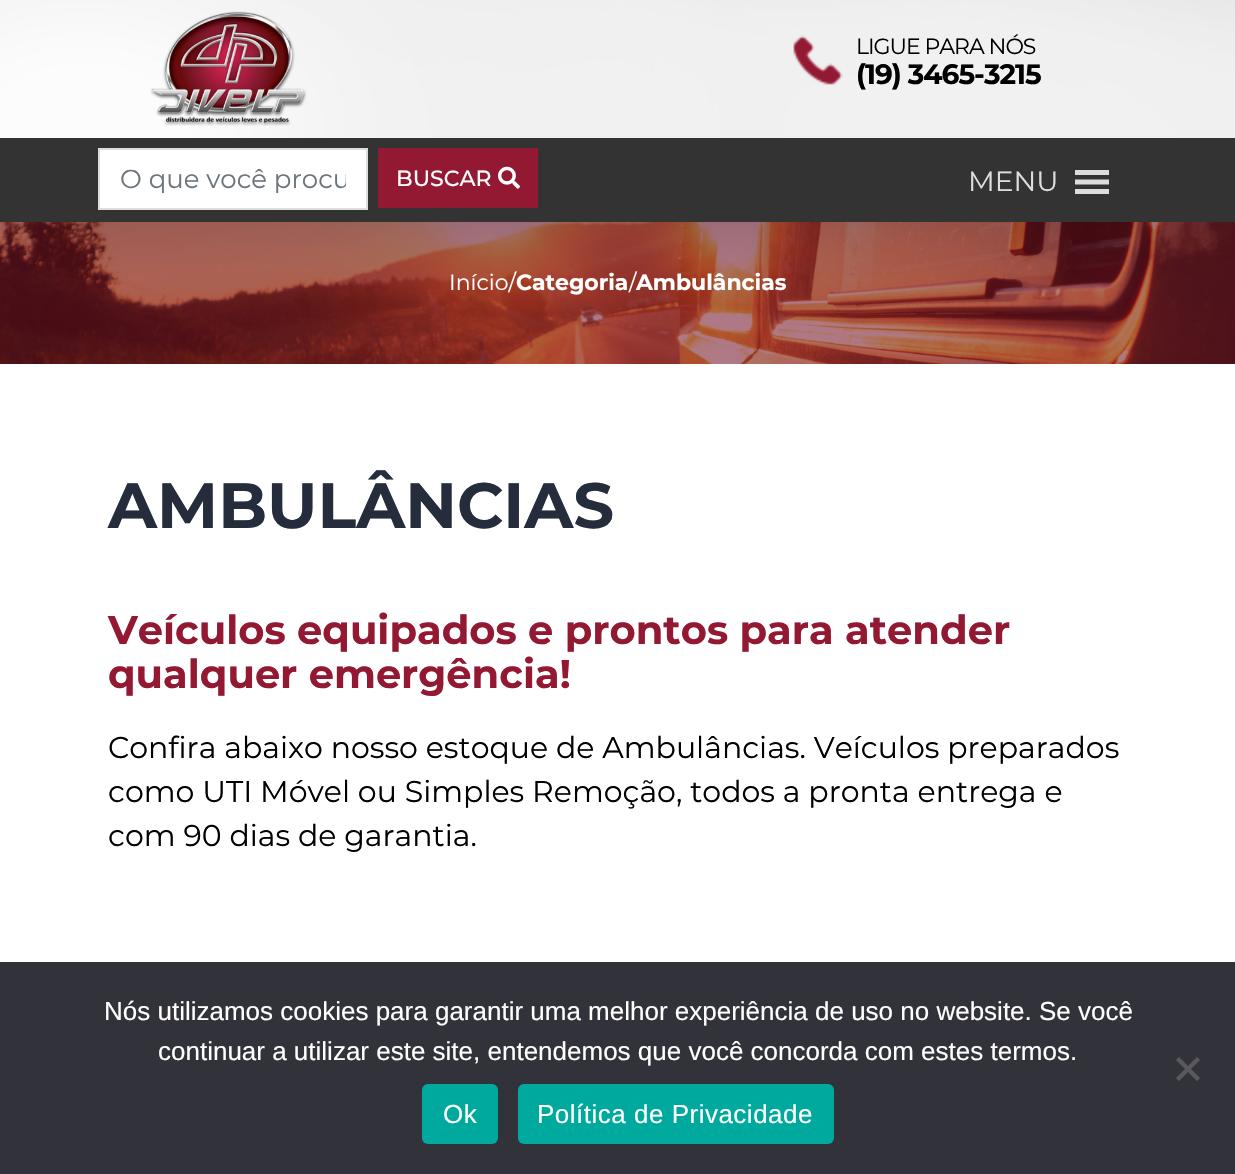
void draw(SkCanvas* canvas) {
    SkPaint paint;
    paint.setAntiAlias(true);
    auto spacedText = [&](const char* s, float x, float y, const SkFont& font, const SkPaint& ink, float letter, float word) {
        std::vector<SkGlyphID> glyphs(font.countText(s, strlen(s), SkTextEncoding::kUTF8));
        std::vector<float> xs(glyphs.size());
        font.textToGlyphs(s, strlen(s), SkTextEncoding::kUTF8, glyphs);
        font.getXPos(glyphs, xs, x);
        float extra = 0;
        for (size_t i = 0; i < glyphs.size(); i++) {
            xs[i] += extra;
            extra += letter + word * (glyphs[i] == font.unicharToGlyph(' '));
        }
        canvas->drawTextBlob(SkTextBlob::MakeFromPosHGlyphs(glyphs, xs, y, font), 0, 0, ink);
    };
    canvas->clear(0xFFFFFFFF);
    canvas->drawImageRect(SkImages::DeferredFromEncodedData(SkData::MakeFromFileName("img5.png")), SkRect::MakeXYWH(0, 222, 1235, 142), SkSamplingOptions());
    paint.setColor(0x4D000000);
    paint.setMaskFilter(SkMaskFilter::MakeBlur(kNormal_SkBlurStyle, 50));
    canvas->drawRect(SkRect::MakeXYWH(20, 24, 1196, 182), paint);
    paint.setMaskFilter(nullptr);
    canvas->drawImageRect(SkImages::DeferredFromEncodedData(SkData::MakeFromFileName("img1.png")), SkRect::MakeXYWH(0, 0, 1235, 138), SkSamplingOptions());
    canvas->drawImageRect(SkImages::DeferredFromEncodedData(SkData::MakeFromFileName("img2.png")), SkRect::MakeXYWH(150, 11, 157, 115), SkSamplingOptions());
    canvas->drawImageRect(SkImages::DeferredFromEncodedData(SkData::MakeFromFileName("img3.png")), SkRect::MakeXYWH(793, 35, 50, 50), SkSamplingOptions());
    SkFont font1(fontMgr->matchFamilyStyle("Montserrat", SkFontStyle::Normal()), 22);
    font1.setSubpixel(true);
    paint.setColor(0xFF000000);
    spacedText("LIGUE PARA NÓS", 856, 54, font1, paint, -1, 0);
    SkFont font2(fontMgr->matchFamilyStyle("Montserrat", SkFontStyle::Bold()), 28);
    font2.setSubpixel(true);
    spacedText("(19) 3465-3215", 856, 84, font2, paint, -1, 0);
    paint.setColor(0xFF333333);
    canvas->drawRect(SkRect::MakeXYWH(0, 138, 1235, 84), paint);
    paint.setColor(0xFFFFFFFF);
    canvas->drawRect(SkRect::MakeXYWH(99, 149, 268, 60), paint);
    paint.setStyle(SkPaint::kStroke_Style);
    paint.setStrokeWidth(2);
    paint.setColor(0xFFDDDDDD);
    canvas->drawRect(SkRect::MakeXYWH(99, 149, 268, 60), paint);
    canvas->save();
    canvas->clipRect(SkRect::MakeXYWH(120, 162, 226, 32));
    SkFont font3(fontMgr->matchFamilyStyle("Montserrat", SkFontStyle::Normal()), 26);
    font3.setSubpixel(true);
    paint.setStyle(SkPaint::kFill_Style);
    paint.setColor(0xFF6C757D);
    canvas->drawString("O que você procu", 120, 188, font3, paint);
    canvas->restore();
    paint.setColor(0xFF931933);
    canvas->drawRect(SkRect::MakeXYWH(378, 148, 160, 60), paint);
    SkFont font4(fontMgr->matchFamilyStyle("Montserrat", SkFontStyle(500, SkFontStyle::kNormal_Width, SkFontStyle::kUpright_Slant)), 22);
    font4.setSubpixel(true);
    paint.setColor(0xFFFFFFFF);
    canvas->drawString("BUSCAR", 396, 186, font4, paint);
    canvas->drawImageRect(SkImages::DeferredFromEncodedData(SkData::MakeFromFileName("img4.png")), SkRect::MakeXYWH(498, 166, 22, 23), SkSamplingOptions());
    SkFont font5(fontMgr->matchFamilyStyle("Montserrat", SkFontStyle::Normal()), 28);
    font5.setSubpixel(true);
    paint.setColor(0xFFDDDDDD);
    canvas->drawString("MENU", 968, 191, font5, paint);
    canvas->drawPath(SkPathBuilder().moveTo(1075, 194).lineTo(1109, 194).lineTo(1109, 189).lineTo(1075, 189).close().moveTo(1075, 170).lineTo(1075, 175).lineTo(1109, 175).lineTo(1109, 170).close().moveTo(1075, 184.5f).lineTo(1109, 184.5f).lineTo(1109, 179.5f).lineTo(1075, 179.5f).close().detach(), paint);
    paint.setColor(0xFFFFFFFF);
    canvas->drawString("Início/", 449, 290, font1, paint);
    SkFont font6(fontMgr->matchFamilyStyle("Montserrat", SkFontStyle::Bold()), 22);
    font6.setSubpixel(true);
    canvas->drawString("Categoria", 516, 290, font6, paint);
    canvas->drawString("/", 629, 290, font1, paint);
    canvas->drawString("Ambulâncias", 636, 290, font6, paint);
    SkFont font7(fontMgr->matchFamilyStyle("Montserrat", SkFontStyle::Bold()), 64);
    font7.setSubpixel(true);
    paint.setColor(0xFF252D3D);
    canvas->drawString("AMBULÂNCIAS", 108, 528, font7, paint);
    SkFont font8(fontMgr->matchFamilyStyle("Montserrat", SkFontStyle::Bold()), 40);
    font8.setSubpixel(true);
    paint.setColor(0xFF931933);
    canvas->drawString("Veículos equipados e prontos para atender", 108, 644, font8, paint);
    canvas->drawString("qualquer emergência!", 108, 688, font8, paint);
    SkFont font9(fontMgr->matchFamilyStyle("Montserrat", SkFontStyle::Normal()), 30);
    font9.setSubpixel(true);
    paint.setColor(0xFF000000);
    canvas->drawString("Confira abaixo nosso estoque de Ambulâncias. Veículos preparados", 108, 758, font9, paint);
    canvas->drawString("como UTI Móvel ou Simples Remoção, todos a pronta entrega e", 108, 802, font9, paint);
    canvas->drawString("com 90 dias de garantia.", 108, 846, font9, paint);
    paint.setColor(0xFF32323A);
    canvas->drawRect(SkRect::MakeXYWH(0, 962, 1235, 212), paint);
    SkFont font10(fontMgr->matchFamilyStyle("Liberation Sans", SkFontStyle::Normal()), 26);
    font10.setSubpixel(true);
    paint.setColor(0xFFFFFFFF);
    canvas->drawString("Nós utilizamos cookies para garantir uma melhor experiência de uso no website. Se você", 104, 1020, font10, paint);
    canvas->drawString("continuar a utilizar este site, entendemos que você concorda com estes termos.", 158, 1060, font10, paint);
    paint.setColor(0xFF59595D);
    canvas->drawPath(SkPathBuilder().moveTo(1197, 1057).lineTo(1200, 1060).lineTo(1179, 1081).lineTo(1176, 1078).close().detach(), paint);
    canvas->drawPath(SkPathBuilder().moveTo(1176, 1060).lineTo(1179, 1057).lineTo(1200, 1078).lineTo(1197, 1081).close().detach(), paint);
    paint.setColor(0xFF00A99D);
    canvas->drawRoundRect(SkRect::MakeXYWH(422, 1084, 76, 60), 6, 6, paint);
    paint.setColor(0xFFFFFFFF);
    spacedText("Ok", 443, 1123, font10, paint, 0.5f, 0);
    paint.setColor(0xFF00A99D);
    canvas->drawRoundRect(SkRect::MakeXYWH(518, 1084, 316, 60), 6, 6, paint);
    paint.setColor(0xFFFFFFFF);
    spacedText("Política de Privacidade", 537, 1123, font10, paint, 0.5f, 0);
}
